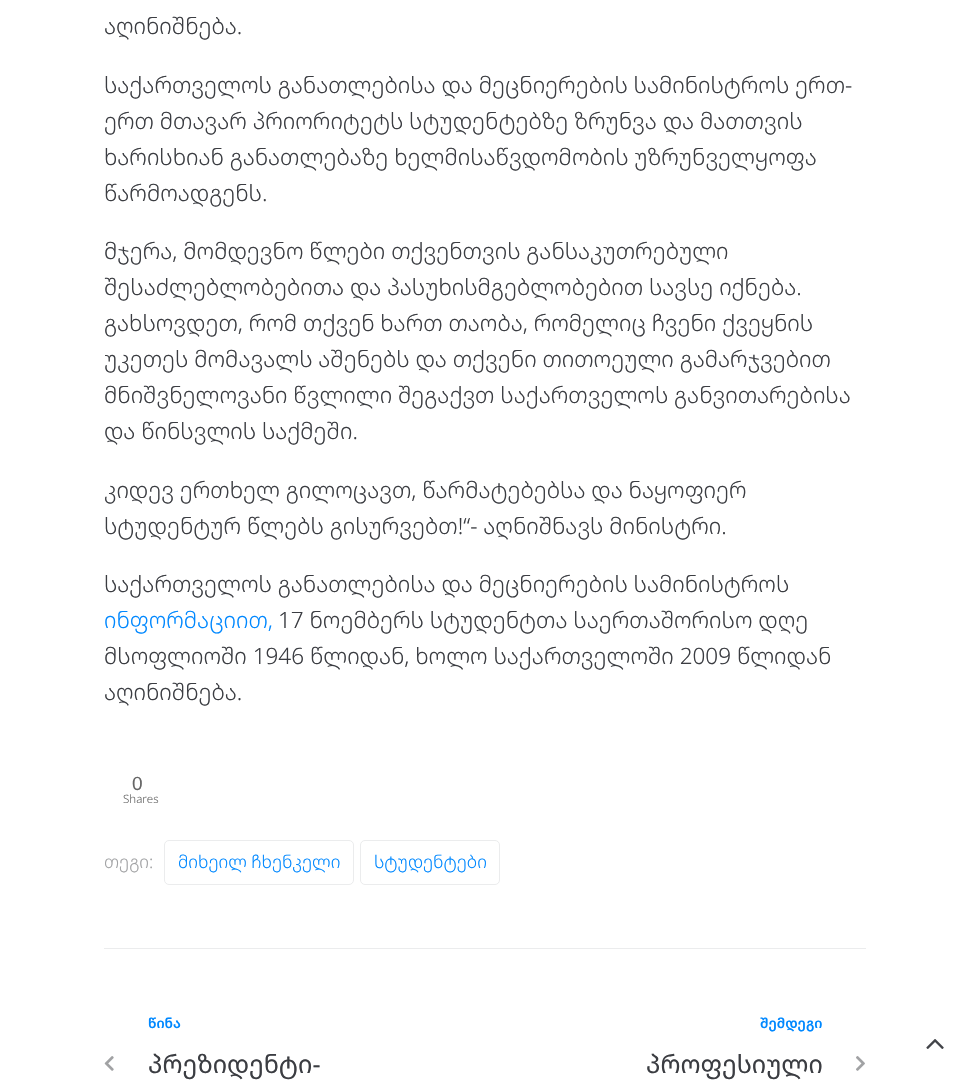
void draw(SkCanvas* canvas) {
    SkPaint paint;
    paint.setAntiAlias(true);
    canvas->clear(0xFFFFFFFF);
    paint.setColor(0xFFEBECED);
    canvas->drawRect(SkRect::MakeXYWH(104, 948, 762, 1), paint);
    SkFont font1(fontMgr->matchFamilyStyle("Noto Sans Georgian", SkFontStyle(300, SkFontStyle::kNormal_Width, SkFontStyle::kUpright_Slant)), 22.5f);
    font1.setSubpixel(true);
    paint.setColor(0xFF3B3D42);
    canvas->drawString("აღინიშნება.", 104, 34, font1, paint);
    canvas->drawString("საქართველოს განათლებისა და მეცნიერების სამინისტროს ერთ-", 104, 93, font1, paint);
    canvas->drawString("ერთ მთავარ პრიორიტეტს სტუდენტებზე ზრუნვა და მათთვის", 104, 129, font1, paint);
    canvas->drawString("ხარისხიან განათლებაზე ხელმისაწვდომობის უზრუნველყოფა", 104, 165, font1, paint);
    canvas->drawString("წარმოადგენს.", 104, 201, font1, paint);
    canvas->drawString("მჯერა, მომდევნო წლები თქვენთვის განსაკუთრებული", 104, 259, font1, paint);
    canvas->drawString("შესაძლებლობებითა და პასუხისმგებლობებით სავსე იქნება.", 104, 295, font1, paint);
    canvas->drawString("გახსოვდეთ, რომ თქვენ ხართ თაობა, რომელიც ჩვენი ქვეყნის", 104, 331, font1, paint);
    canvas->drawString("უკეთეს მომავალს აშენებს და თქვენი თითოეული გამარჯვებით", 104, 367, font1, paint);
    canvas->drawString("მნიშვნელოვანი წვლილი შეგაქვთ საქართველოს განვითარებისა", 104, 403, font1, paint);
    canvas->drawString("და წინსვლის საქმეში.", 104, 439, font1, paint);
    canvas->drawString("კიდევ ერთხელ გილოცავთ, წარმატებებსა და ნაყოფიერ", 104, 498, font1, paint);
    canvas->drawString("სტუდენტურ წლებს გისურვებთ!“- აღნიშნავს მინისტრი.", 104, 534, font1, paint);
    canvas->drawString("საქართველოს განათლებისა და მეცნიერების სამინისტროს", 104, 592, font1, paint);
    paint.setColor(0xFF0088FF);
    canvas->drawString("ინფორმაციით,", 104, 628, font1, paint);
    paint.setColor(0xFF3B3D42);
    canvas->drawString("17 ნოემბერს სტუდენტთა საერთაშორისო დღე", 278, 628, font1, paint);
    canvas->drawString("მსოფლიოში 1946 წლიდან, ხოლო საქართველოში 2009 წლიდან", 104, 664, font1, paint);
    canvas->drawString("აღინიშნება.", 104, 700, font1, paint);
    SkFont font2(fontMgr->matchFamilyStyle("Liberation Sans", SkFontStyle::Normal()), 19);
    font2.setSubpixel(true);
    paint.setColor(0xFF666666);
    canvas->drawString("0", 132, 790, font2, paint);
    SkFont font3(fontMgr->matchFamilyStyle("Noto Sans Georgian", SkFontStyle(300, SkFontStyle::kNormal_Width, SkFontStyle::kUpright_Slant)), 11.5f);
    font3.setSubpixel(true);
    canvas->drawString("Shares", 123, 803, font3, paint);
    SkFont font4(fontMgr->matchFamilyStyle("Noto Sans Georgian", SkFontStyle(300, SkFontStyle::kNormal_Width, SkFontStyle::kUpright_Slant)), 17.5f);
    font4.setSubpixel(true);
    paint.setColor(0xFFA1A2A4);
    canvas->drawString("თეგი:", 104, 868, font4, paint);
    paint.setStyle(SkPaint::kStroke_Style);
    paint.setStrokeWidth(1);
    paint.setColor(0xFFEBECED);
    canvas->drawRoundRect(SkRect::MakeXYWH(164.5f, 840.5f, 189, 44), 4.5f, 4.5f, paint);
    paint.setStyle(SkPaint::kFill_Style);
    paint.setColor(0xFF0088FF);
    canvas->drawString("მიხეილ ჩხენკელი", 178, 868, font4, paint);
    paint.setStyle(SkPaint::kStroke_Style);
    paint.setColor(0xFFEBECED);
    canvas->drawRoundRect(SkRect::MakeXYWH(360.5f, 840.5f, 139, 44), 4.5f, 4.5f, paint);
    paint.setStyle(SkPaint::kFill_Style);
    paint.setColor(0xFF0088FF);
    canvas->drawString("სტუდენტები", 374, 868, font4, paint);
    SkFont font5(fontMgr->matchFamilyStyle("Noto Sans Georgian", SkFontStyle(600, SkFontStyle::kNormal_Width, SkFontStyle::kUpright_Slant)), 13.75f);
    font5.setSubpixel(true);
    canvas->drawString("წინა", 148, 1028, font5, paint);
    canvas->drawImageRect(SkImages::DeferredFromEncodedData(SkData::MakeFromFileName("img1.png")), SkRect::MakeXYWH(104, 1056, 10, 15), SkSamplingOptions());
    SkFont font6(fontMgr->matchFamilyStyle("Noto Sans Georgian", SkFontStyle::Normal()), 25);
    font6.setSubpixel(true);
    paint.setColor(0xFF3B3D42);
    canvas->drawString("პრეზიდენტი-", 148, 1073, font6, paint);
    paint.setColor(0xFF0088FF);
    canvas->drawString("შემდეგი", 760, 1028, font5, paint);
    paint.setColor(0xFF3B3D42);
    canvas->drawString("პროფესიული", 646, 1073, font6, paint);
    canvas->drawImageRect(SkImages::DeferredFromEncodedData(SkData::MakeFromFileName("img2.png")), SkRect::MakeXYWH(856, 1056, 9, 15), SkSamplingOptions());
    canvas->drawImageRect(SkImages::DeferredFromEncodedData(SkData::MakeFromFileName("img3.png")), SkRect::MakeXYWH(926, 1039, 18, 10), SkSamplingOptions());
}
